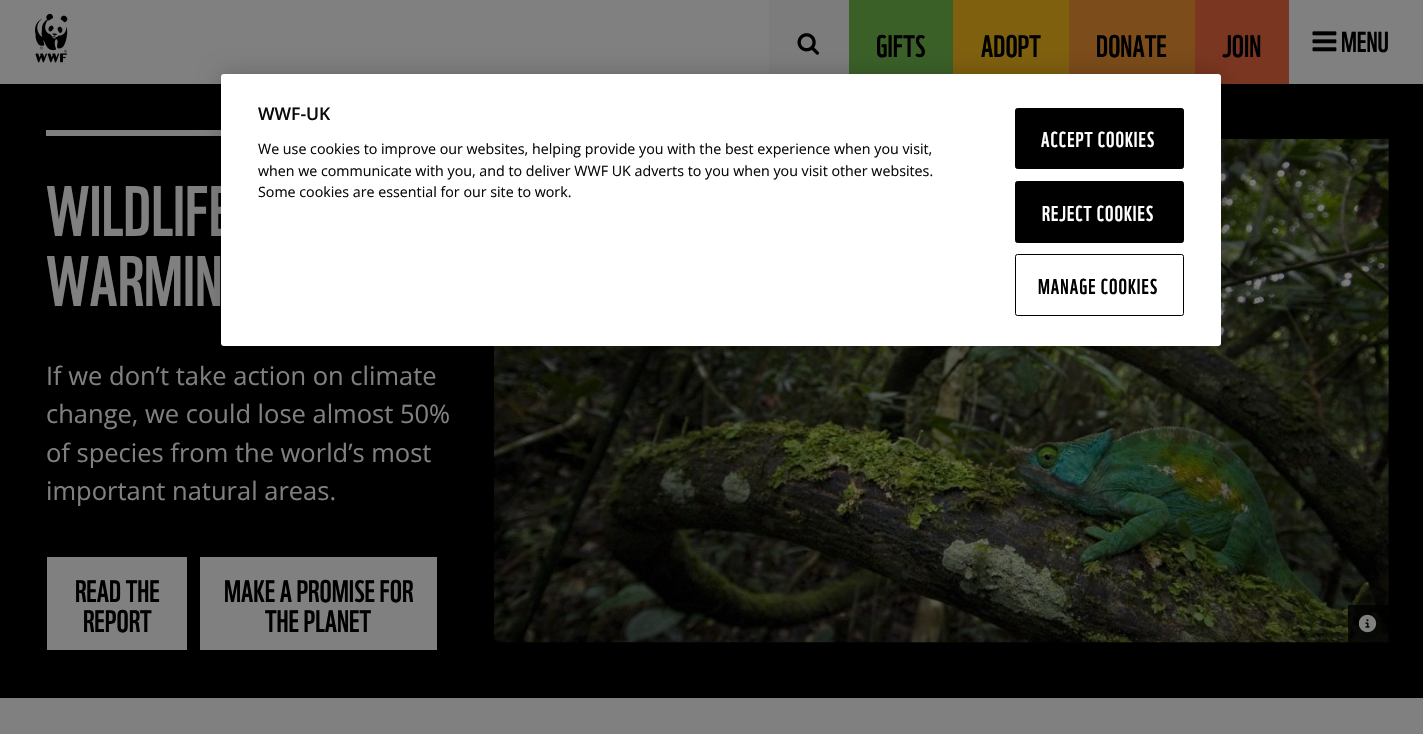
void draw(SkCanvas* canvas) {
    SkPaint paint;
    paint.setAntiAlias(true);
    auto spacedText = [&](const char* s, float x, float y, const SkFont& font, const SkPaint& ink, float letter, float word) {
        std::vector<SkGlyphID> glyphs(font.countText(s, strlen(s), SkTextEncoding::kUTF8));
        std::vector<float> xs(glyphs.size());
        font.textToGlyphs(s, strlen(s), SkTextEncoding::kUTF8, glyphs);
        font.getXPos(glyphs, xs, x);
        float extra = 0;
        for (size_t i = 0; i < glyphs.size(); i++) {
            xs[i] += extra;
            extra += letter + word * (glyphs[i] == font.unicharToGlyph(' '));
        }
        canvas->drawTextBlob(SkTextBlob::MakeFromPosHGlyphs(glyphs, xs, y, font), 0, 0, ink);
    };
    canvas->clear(0xFF808080);
    paint.setColor(0xFF000000);
    canvas->drawRect(SkRect::MakeXYWH(0, 84, 1423, 614), paint);
    paint.setColor(0x2E000000);
    paint.setMaskFilter(SkMaskFilter::MakeBlur(kNormal_SkBlurStyle, 5));
    canvas->drawRect(SkRect::MakeXYWH(0, 1, 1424, 84), paint);
    paint.setMaskFilter(nullptr);
    paint.setColor(0xFF808080);
    canvas->drawRect(SkRect::MakeXYWH(0, 0, 1423, 84), paint);
    canvas->drawImageRect(SkImages::DeferredFromEncodedData(SkData::MakeFromFileName("img1.png")), SkRect::MakeXYWH(35, 14, 33, 49), SkSamplingOptions());
    paint.setColor(0xFF7C7C7C);
    canvas->drawRect(SkRect::MakeXYWH(769, 0, 80, 74), paint);
    canvas->drawImageRect(SkImages::DeferredFromEncodedData(SkData::MakeFromFileName("img2.png")), SkRect::MakeXYWH(797, 33, 22, 22), SkSamplingOptions());
    paint.setColor(0xFF3A6028);
    canvas->drawRect(SkRect::MakeXYWH(849, 0, 104, 74), paint);
    SkFont font1(fontMgr->matchFamilyStyle("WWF", SkFontStyle::Normal()), 30.25f);
    font1.setSubpixel(true);
    paint.setColor(0xFF000000);
    canvas->drawString("GIFTS", 876, 57, font1, paint);
    paint.setColor(0xFF7F600F);
    canvas->drawRect(SkRect::MakeXYWH(953, 0, 116, 74), paint);
    paint.setColor(0xFF000000);
    canvas->drawString("ADOPT", 981, 57, font1, paint);
    paint.setColor(0xFF7C4C1A);
    canvas->drawRect(SkRect::MakeXYWH(1069, 0, 126, 74), paint);
    paint.setColor(0xFF000000);
    canvas->drawString("DONATE", 1096, 57, font1, paint);
    paint.setColor(0xFF7A3621);
    canvas->drawRect(SkRect::MakeXYWH(1195, 0, 94, 84), paint);
    paint.setColor(0xFF000000);
    canvas->drawString("JOIN", 1222, 57, font1, paint);
    canvas->drawImageRect(SkImages::DeferredFromEncodedData(SkData::MakeFromFileName("img3.png")), SkRect::MakeXYWH(1312, 31, 25, 21), SkSamplingOptions());
    SkFont font2(fontMgr->matchFamilyStyle("WWF", SkFontStyle::Normal()), 28);
    font2.setSubpixel(true);
    canvas->drawString("MENU", 1341, 52, font2, paint);
    paint.setColor(0xFF808080);
    canvas->drawRect(SkRect::MakeXYWH(46, 130, 175, 6), paint);
    SkFont font3(fontMgr->matchFamilyStyle("WWF", SkFontStyle::Normal()), 69.5f);
    font3.setSubpixel(true);
    canvas->drawString("WILDLIFE", 46, 236, font3, paint);
    canvas->drawString("WARMIN", 46, 306, font3, paint);
    SkFont font4(fontMgr->matchFamilyStyle("Open Sans", SkFontStyle::Normal()), 25.5f);
    font4.setSubpixel(true);
    canvas->drawString("If we don’t take action on climate", 46, 385, font4, paint);
    canvas->drawString("change, we could lose almost 50%", 46, 423, font4, paint);
    canvas->drawString("of species from the world’s most", 46, 462, font4, paint);
    canvas->drawString("important natural areas.", 46, 500, font4, paint);
    canvas->drawRect(SkRect::MakeXYWH(47, 557, 140, 93), paint);
    paint.setColor(0xFF000000);
    canvas->drawString("READ THE", 75, 602, font1, paint);
    canvas->drawString("REPORT", 83, 632, font1, paint);
    paint.setColor(0xFF808080);
    canvas->drawRect(SkRect::MakeXYWH(200, 557, 237, 93), paint);
    paint.setColor(0xFF000000);
    canvas->drawString("MAKE A PROMISE FOR", 224, 602, font1, paint);
    canvas->drawString("THE PLANET", 265, 632, font1, paint);
    canvas->drawImageRect(SkImages::DeferredFromEncodedData(SkData::MakeFromFileName("img4.png")), SkRect::MakeXYWH(493, 138, 896, 505), SkSamplingOptions());
    paint.setColor(0xCC000000);
    canvas->drawRect(SkRect::MakeXYWH(1359, 605, 30, 38), paint);
    canvas->drawImageRect(SkImages::DeferredFromEncodedData(SkData::MakeFromFileName("img5.png")), SkRect::MakeXYWH(1358, 614, 19, 19), SkSamplingOptions());
    canvas->drawRect(SkRect::MakeXYWH(1348, 605, 11, 38), paint);
    paint.setColor(0x33000000);
    paint.setMaskFilter(SkMaskFilter::MakeBlur(kNormal_SkBlurStyle, 11));
    canvas->drawRoundRect(SkRect::MakeXYWH(221, 74, 1000, 272), 3, 3, paint);
    paint.setMaskFilter(nullptr);
    paint.setColor(0xFFFFFFFF);
    canvas->drawRoundRect(SkRect::MakeXYWH(221, 74, 1000, 272), 3, 3, paint);
    SkFont font5(fontMgr->matchFamilyStyle("Open Sans", SkFontStyle(600, SkFontStyle::kNormal_Width, SkFontStyle::kUpright_Slant)), 17.5f);
    font5.setSubpixel(true);
    paint.setColor(0xFF0A0A0A);
    canvas->drawString("WWF-UK", 258, 120, font5, paint);
    SkFont font6(fontMgr->matchFamilyStyle("Open Sans", SkFontStyle::Normal()), 14.25f);
    font6.setSubpixel(true);
    canvas->drawString("We use cookies to improve our websites, helping provide you with the best experience when you visit,", 258, 154, font6, paint);
    canvas->drawString("when we communicate with you, and to deliver WWF UK adverts to you when you visit other websites.", 258, 176, font6, paint);
    canvas->drawString("Some cookies are essential for our site to work.", 258, 197, font6, paint);
    paint.setColor(0xFF000000);
    canvas->drawRoundRect(SkRect::MakeXYWH(1015.5f, 108.5f, 168, 60), 2, 2, paint);
    paint.setStyle(SkPaint::kStroke_Style);
    paint.setStrokeWidth(1);
    canvas->drawRoundRect(SkRect::MakeXYWH(1015.5f, 108.5f, 168, 60), 2, 2, paint);
    SkFont font7(fontMgr->matchFamilyStyle("WWF", SkFontStyle::Normal()), 21);
    font7.setSubpixel(true);
    paint.setStyle(SkPaint::kFill_Style);
    paint.setColor(0xFFFFFFFF);
    spacedText("ACCEPT COOKIES", 1041, 147, font7, paint, 1, 0);
    paint.setColor(0xFF000000);
    canvas->drawRoundRect(SkRect::MakeXYWH(1015.5f, 181.5f, 168, 61), 2, 2, paint);
    paint.setStyle(SkPaint::kStroke_Style);
    canvas->drawRoundRect(SkRect::MakeXYWH(1015.5f, 181.5f, 168, 61), 2, 2, paint);
    paint.setStyle(SkPaint::kFill_Style);
    paint.setColor(0xFFFFFFFF);
    spacedText("REJECT COOKIES", 1042, 221, font7, paint, 1, 0);
    paint.setStyle(SkPaint::kStroke_Style);
    paint.setColor(0xFF000000);
    canvas->drawRoundRect(SkRect::MakeXYWH(1015.5f, 254.5f, 168, 61), 2, 2, paint);
    paint.setStyle(SkPaint::kFill_Style);
    spacedText("MANAGE COOKIES", 1038, 294, font7, paint, 1, 0);
}
